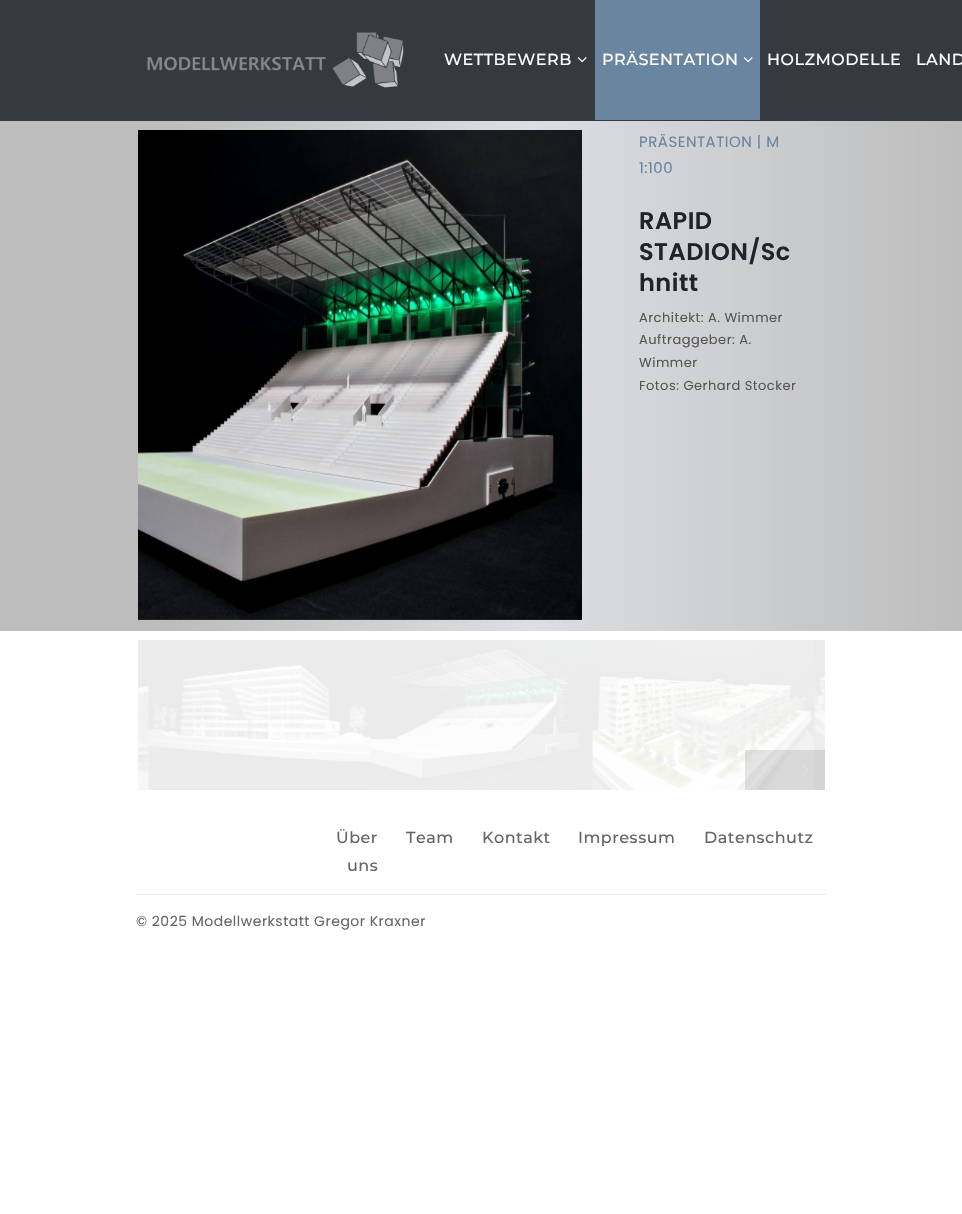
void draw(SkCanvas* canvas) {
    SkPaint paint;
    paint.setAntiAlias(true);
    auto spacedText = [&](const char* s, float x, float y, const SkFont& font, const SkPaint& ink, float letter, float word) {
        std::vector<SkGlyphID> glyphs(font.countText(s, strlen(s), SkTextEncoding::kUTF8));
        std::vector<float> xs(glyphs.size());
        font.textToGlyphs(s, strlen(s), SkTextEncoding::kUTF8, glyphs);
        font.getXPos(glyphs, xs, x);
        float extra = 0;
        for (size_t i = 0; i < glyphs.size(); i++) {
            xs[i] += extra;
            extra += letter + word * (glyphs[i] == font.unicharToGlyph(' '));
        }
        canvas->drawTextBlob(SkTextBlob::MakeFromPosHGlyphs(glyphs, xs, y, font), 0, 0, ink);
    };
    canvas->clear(0xFFFFFFFF);
    paint.setColor(0xFF343A40);
    canvas->drawRect(SkRect::MakeXYWH(0, 0, 962, 121), paint);
    canvas->drawImageRect(SkImages::DeferredFromEncodedData(SkData::MakeFromFileName("img1.png")), SkRect::MakeXYWH(147, 32, 257, 56), SkSamplingOptions());
    SkFont font1(fontMgr->matchFamilyStyle("Montserrat", SkFontStyle(500, SkFontStyle::kNormal_Width, SkFontStyle::kUpright_Slant)), 16);
    font1.setSubpixel(true);
    paint.setColor(0xFFFFFFFF);
    spacedText("WETTBEWERB", 444, 65, font1, paint, 0.5f, 0);
    canvas->drawImageRect(SkImages::DeferredFromEncodedData(SkData::MakeFromFileName("img2.png")), SkRect::MakeXYWH(577, 57, 10, 6), SkSamplingOptions());
    paint.setColor(0xFF6985A0);
    canvas->drawRect(SkRect::MakeXYWH(595, 0, 165, 120), paint);
    paint.setColor(0xFFFFFFFF);
    spacedText("PRÄSENTATION", 602, 65, font1, paint, 0.5f, 0);
    canvas->drawImageRect(SkImages::DeferredFromEncodedData(SkData::MakeFromFileName("img3.png")), SkRect::MakeXYWH(743, 57, 10, 6), SkSamplingOptions());
    spacedText("HOLZMODELLE", 767, 65, font1, paint, 0.5f, 0);
    spacedText("LAND", 916, 65, font1, paint, 0.5f, 0);
    {
        const SkColor colors[] = {0xFFBDBDBD, 0xFFDCDEE3, 0xFFBDBDBD};
        const float stops[] = {0.18f, 0.55f, 1};
        const SkPoint ends[] = {{0, 376}, {962, 376}};
        paint.setShader(SkGradientShader::MakeLinear(ends, colors, stops, 3, SkTileMode::kClamp));
        paint.setAlpha(255);
    }
    canvas->drawRect(SkRect::MakeXYWH(0, 121, 962, 510), paint);
    canvas->drawImageRect(SkImages::DeferredFromEncodedData(SkData::MakeFromFileName("img4.png")), SkRect::MakeXYWH(138, 130, 444, 490), SkSamplingOptions());
    SkFont font2(fontMgr->matchFamilyStyle("Poppins", SkFontStyle::Normal()), 15);
    font2.setSubpixel(true);
    paint.setShader(nullptr);
    paint.setColor(0xFF6985A0);
    spacedText("PRÄSENTATION | M", 639, 147, font2, paint, 0.5f, 0);
    spacedText("1:100", 639, 173, font2, paint, 0.5f, 0);
    SkFont font3(fontMgr->matchFamilyStyle("Poppins", SkFontStyle(600, SkFontStyle::kNormal_Width, SkFontStyle::kUpright_Slant)), 24);
    font3.setSubpixel(true);
    paint.setColor(0xFF222328);
    spacedText("RAPID", 639, 229, font3, paint, 0.5f, 0);
    spacedText("STADION/Sc", 639, 260, font3, paint, 0.5f, 0);
    spacedText("hnitt", 639, 291, font3, paint, 0.5f, 0);
    SkFont font4(fontMgr->matchFamilyStyle("Poppins", SkFontStyle::Normal()), 13);
    font4.setSubpixel(true);
    paint.setColor(0xFF555555);
    spacedText("Architekt: A. Wimmer", 639, 322, font4, paint, 0.5f, 0);
    spacedText("Auftraggeber: A.", 639, 344, font4, paint, 0.5f, 0);
    spacedText("Wimmer", 639, 367, font4, paint, 0.5f, 0);
    spacedText("Fotos: Gerhard Stocker", 639, 390, font4, paint, 0.5f, 0);
    canvas->drawImageRect(SkImages::DeferredFromEncodedData(SkData::MakeFromFileName("img5.png")), SkRect::MakeXYWH(138, 640, 11, 150), SkSamplingOptions());
    canvas->drawImageRect(SkImages::DeferredFromEncodedData(SkData::MakeFromFileName("img6.png")), SkRect::MakeXYWH(148, 640, 223, 150), SkSamplingOptions());
    canvas->drawImageRect(SkImages::DeferredFromEncodedData(SkData::MakeFromFileName("img9.png")), SkRect::MakeXYWH(814, 640, 11, 150), SkSamplingOptions());
    canvas->drawImageRect(SkImages::DeferredFromEncodedData(SkData::MakeFromFileName("img8.png")), SkRect::MakeXYWH(592, 640, 223, 150), SkSamplingOptions());
    canvas->drawImageRect(SkImages::DeferredFromEncodedData(SkData::MakeFromFileName("img7.png")), SkRect::MakeXYWH(370, 640, 223, 150), SkSamplingOptions());
    paint.setColor(0x1A000000);
    canvas->drawRect(SkRect::MakeXYWH(745, 750, 40, 40), paint);
    canvas->drawImageRect(SkImages::DeferredFromEncodedData(SkData::MakeFromFileName("img10.png")), SkRect::MakeXYWH(761, 763, 7, 13), SkSamplingOptions());
    canvas->drawRect(SkRect::MakeXYWH(785, 750, 40, 40), paint);
    canvas->drawImageRect(SkImages::DeferredFromEncodedData(SkData::MakeFromFileName("img11.png")), SkRect::MakeXYWH(801, 764, 7, 12), SkSamplingOptions());
    paint.setColor(0xFFE6E6E6);
    canvas->drawRect(SkRect::MakeXYWH(136, 894, 690, 1), paint);
    paint.setColor(0xFF666666);
    spacedText("Über", 336, 843, font1, paint, 0.5f, 0);
    spacedText("uns", 347, 871, font1, paint, 0.5f, 0);
    spacedText("Team", 406, 843, font1, paint, 0.5f, 0);
    spacedText("Kontakt", 482, 843, font1, paint, 0.5f, 0);
    spacedText("Impressum", 578, 843, font1, paint, 0.5f, 0);
    spacedText("Datenschutz", 704, 843, font1, paint, 0.5f, 0);
    SkFont font5(fontMgr->matchFamilyStyle("Poppins", SkFontStyle::Normal()), 14);
    font5.setSubpixel(true);
    spacedText("© 2025 Modellwerkstatt Gregor Kraxner", 136, 926, font5, paint, 0.5f, 0);
}
